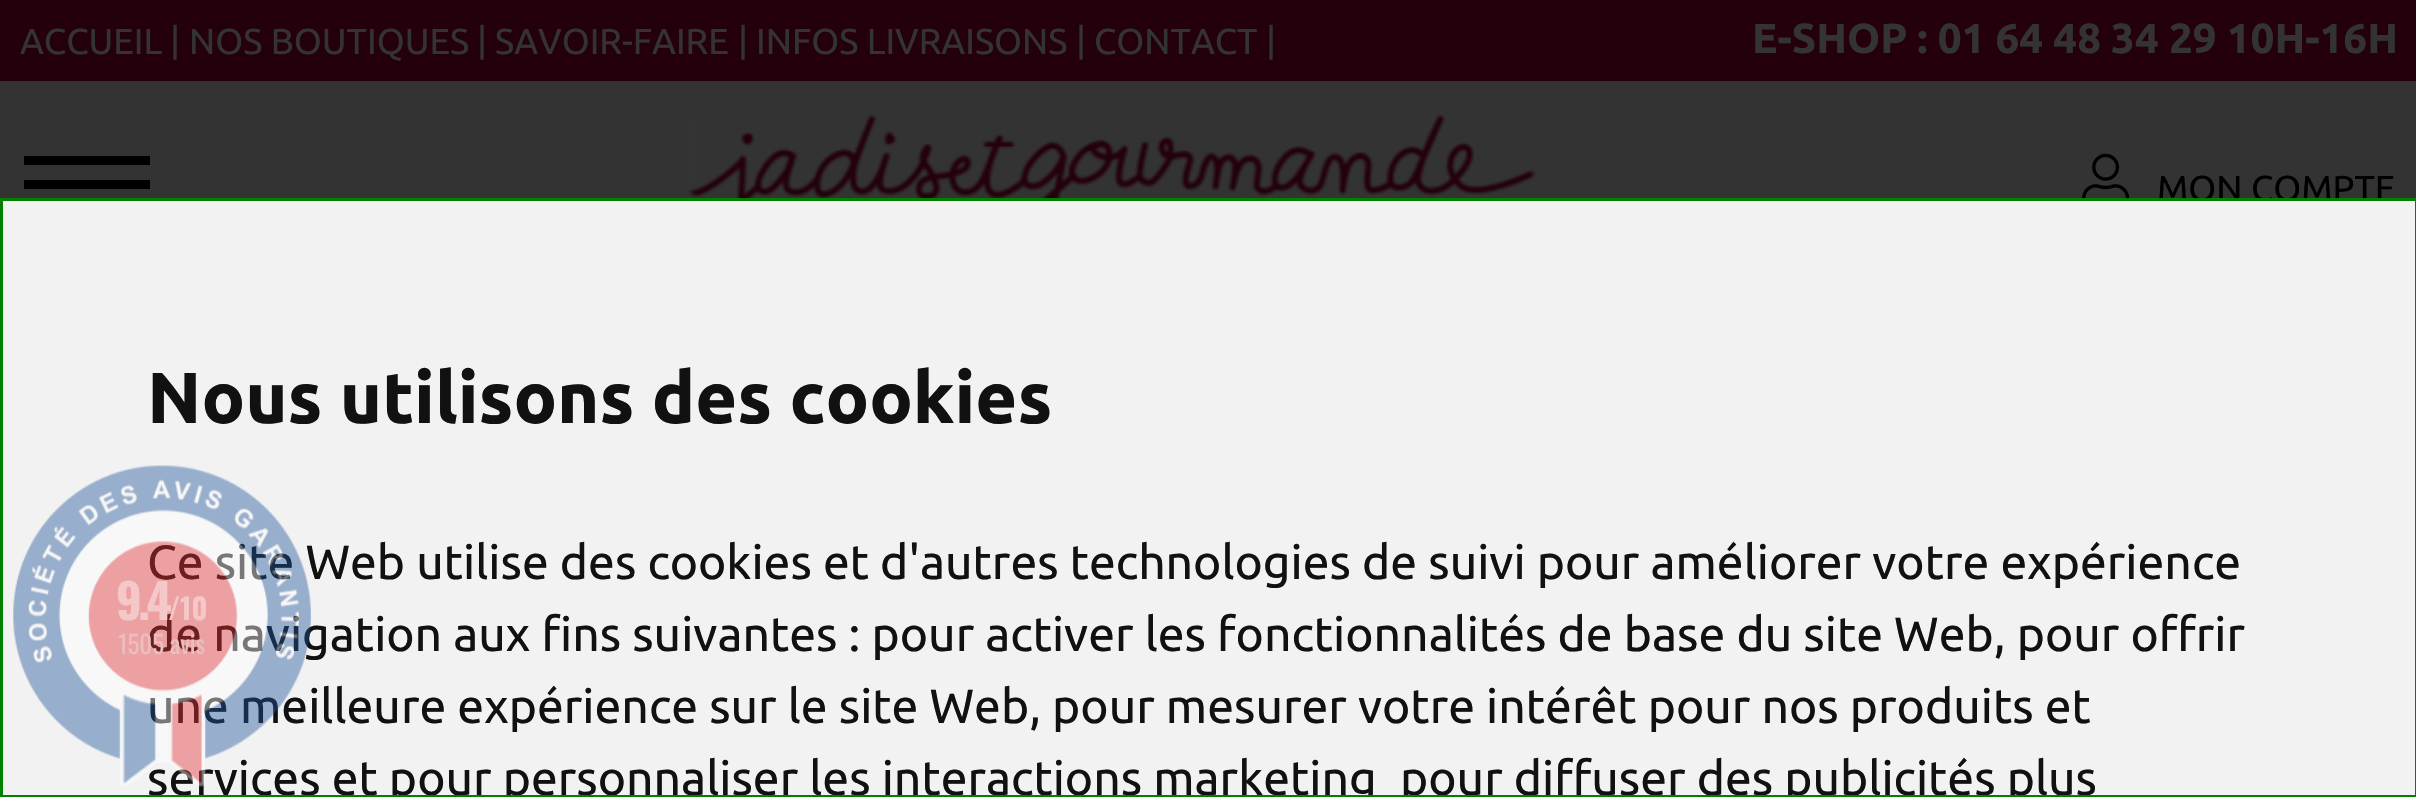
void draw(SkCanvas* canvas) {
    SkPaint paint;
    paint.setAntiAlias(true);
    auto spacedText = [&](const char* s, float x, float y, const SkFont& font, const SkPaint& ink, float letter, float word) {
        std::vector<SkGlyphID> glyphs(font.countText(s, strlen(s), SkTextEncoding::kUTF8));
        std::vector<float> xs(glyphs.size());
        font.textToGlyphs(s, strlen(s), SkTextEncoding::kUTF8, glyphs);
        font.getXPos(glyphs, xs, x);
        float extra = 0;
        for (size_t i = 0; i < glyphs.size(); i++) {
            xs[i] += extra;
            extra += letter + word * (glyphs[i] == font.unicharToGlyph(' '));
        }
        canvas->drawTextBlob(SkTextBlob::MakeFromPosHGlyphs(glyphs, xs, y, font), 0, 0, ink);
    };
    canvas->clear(0xFF333333);
    paint.setColor(0xFF23000B);
    canvas->drawRect(SkRect::MakeXYWH(0, 0, 2416, 81), paint);
    SkFont font1(fontMgr->matchFamilyStyle("Ubuntu", SkFontStyle::Normal()), 36);
    font1.setSubpixel(true);
    paint.setColor(0xFF333333);
    canvas->drawString("ACCUEIL", 20, 54, font1, paint);
    canvas->drawString("|", 170, 53, font1, paint);
    canvas->drawString("NOS BOUTIQUES", 189, 54, font1, paint);
    canvas->drawString("|", 477, 53, font1, paint);
    canvas->drawString("SAVOIR-FAIRE", 495, 54, font1, paint);
    canvas->drawString("|", 738, 53, font1, paint);
    canvas->drawString("INFOS LIVRAISONS", 756, 54, font1, paint);
    canvas->drawString("|", 1076, 53, font1, paint);
    canvas->drawString("CONTACT", 1094, 54, font1, paint);
    canvas->drawString("|", 1266, 53, font1, paint);
    SkFont font2(fontMgr->matchFamilyStyle("Ubuntu", SkFontStyle::Bold()), 42);
    font2.setSubpixel(true);
    canvas->drawString("E-SHOP : 01 64 48 34 29 10H-16H", 1752, 53, font2, paint);
    paint.setColor(0xFF000000);
    canvas->drawRect(SkRect::MakeXYWH(24, 180, 126, 9), paint);
    canvas->drawRect(SkRect::MakeXYWH(24, 156, 126, 9), paint);
    canvas->drawImageRect(SkImages::DeferredFromEncodedData(SkData::MakeFromFileName("img1.png")), SkRect::MakeXYWH(688, 114, 849, 84), SkSamplingOptions());
    canvas->drawImageRect(SkImages::DeferredFromEncodedData(SkData::MakeFromFileName("img2.png")), SkRect::MakeXYWH(2082, 153, 48, 45), SkSamplingOptions());
    canvas->drawString("MON COMPTE", 2157, 201, font1, paint);
    paint.setColor(0xFFF2F2F2);
    canvas->drawRect(SkRect::MakeXYWH(1.5f, 199.5f, 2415, 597), paint);
    paint.setStyle(SkPaint::kStroke_Style);
    paint.setStrokeWidth(3);
    paint.setColor(0xFF008000);
    canvas->drawRect(SkRect::MakeXYWH(1.5f, 199.5f, 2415, 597), paint);
    SkFont font3(fontMgr->matchFamilyStyle("Ubuntu", SkFontStyle::Bold()), 72);
    font3.setSubpixel(true);
    paint.setStyle(SkPaint::kFill_Style);
    paint.setColor(0xFF111111);
    canvas->drawString("Nous utilisons des cookies", 147, 423, font3, paint);
    SkFont font4(fontMgr->matchFamilyStyle("Ubuntu", SkFontStyle::Normal()), 48);
    font4.setSubpixel(true);
    canvas->drawString("Ce site Web utilise des cookies et d'autres technologies de suivi pour améliorer votre expérience", 147, 579, font4, paint);
    canvas->drawString("de navigation aux fins suivantes : pour activer les fonctionnalités de base du site Web, pour offrir", 147, 651, font4, paint);
    canvas->drawString("une meilleure expérience sur le site Web, pour mesurer votre intérêt pour nos produits et", 147, 723, font4, paint);
    canvas->save();
    canvas->clipRect(SkRect::MakeXYWH(3, 201, 2412, 594));
    canvas->drawString("services et pour personnaliser les interactions marketing", 147, 795, font4, paint);
    canvas->drawString("pour diffuser des publicités plus", 1400, 795, font4, paint);
    canvas->restore();
    canvas->drawImageRect(SkImages::DeferredFromEncodedData(SkData::MakeFromFileName("img3.png")), SkRect::MakeXYWH(13, 465, 298, 322), SkSamplingOptions());
    SkFont font5(fontMgr->matchFamilyStyle("Oswald", SkFontStyle::Bold()), 48);
    font5.setSubpixel(true);
    paint.setColor(0xFFF4C8C9);
    spacedText("9.4", 116, 620, font5, paint, -3.5f, 0);
    SkFont font6(fontMgr->matchFamilyStyle("Oswald", SkFontStyle::Bold()), 29);
    font6.setSubpixel(true);
    canvas->drawString("/10", 168, 620, font6, paint);
    SkFont font7(fontMgr->matchFamilyStyle("Oswald", SkFontStyle::Normal()), 25);
    font7.setSubpixel(true);
    paint.setColor(0xFFEABEBF);
    canvas->drawString("1505 avis", 118, 654, font7, paint);
}
